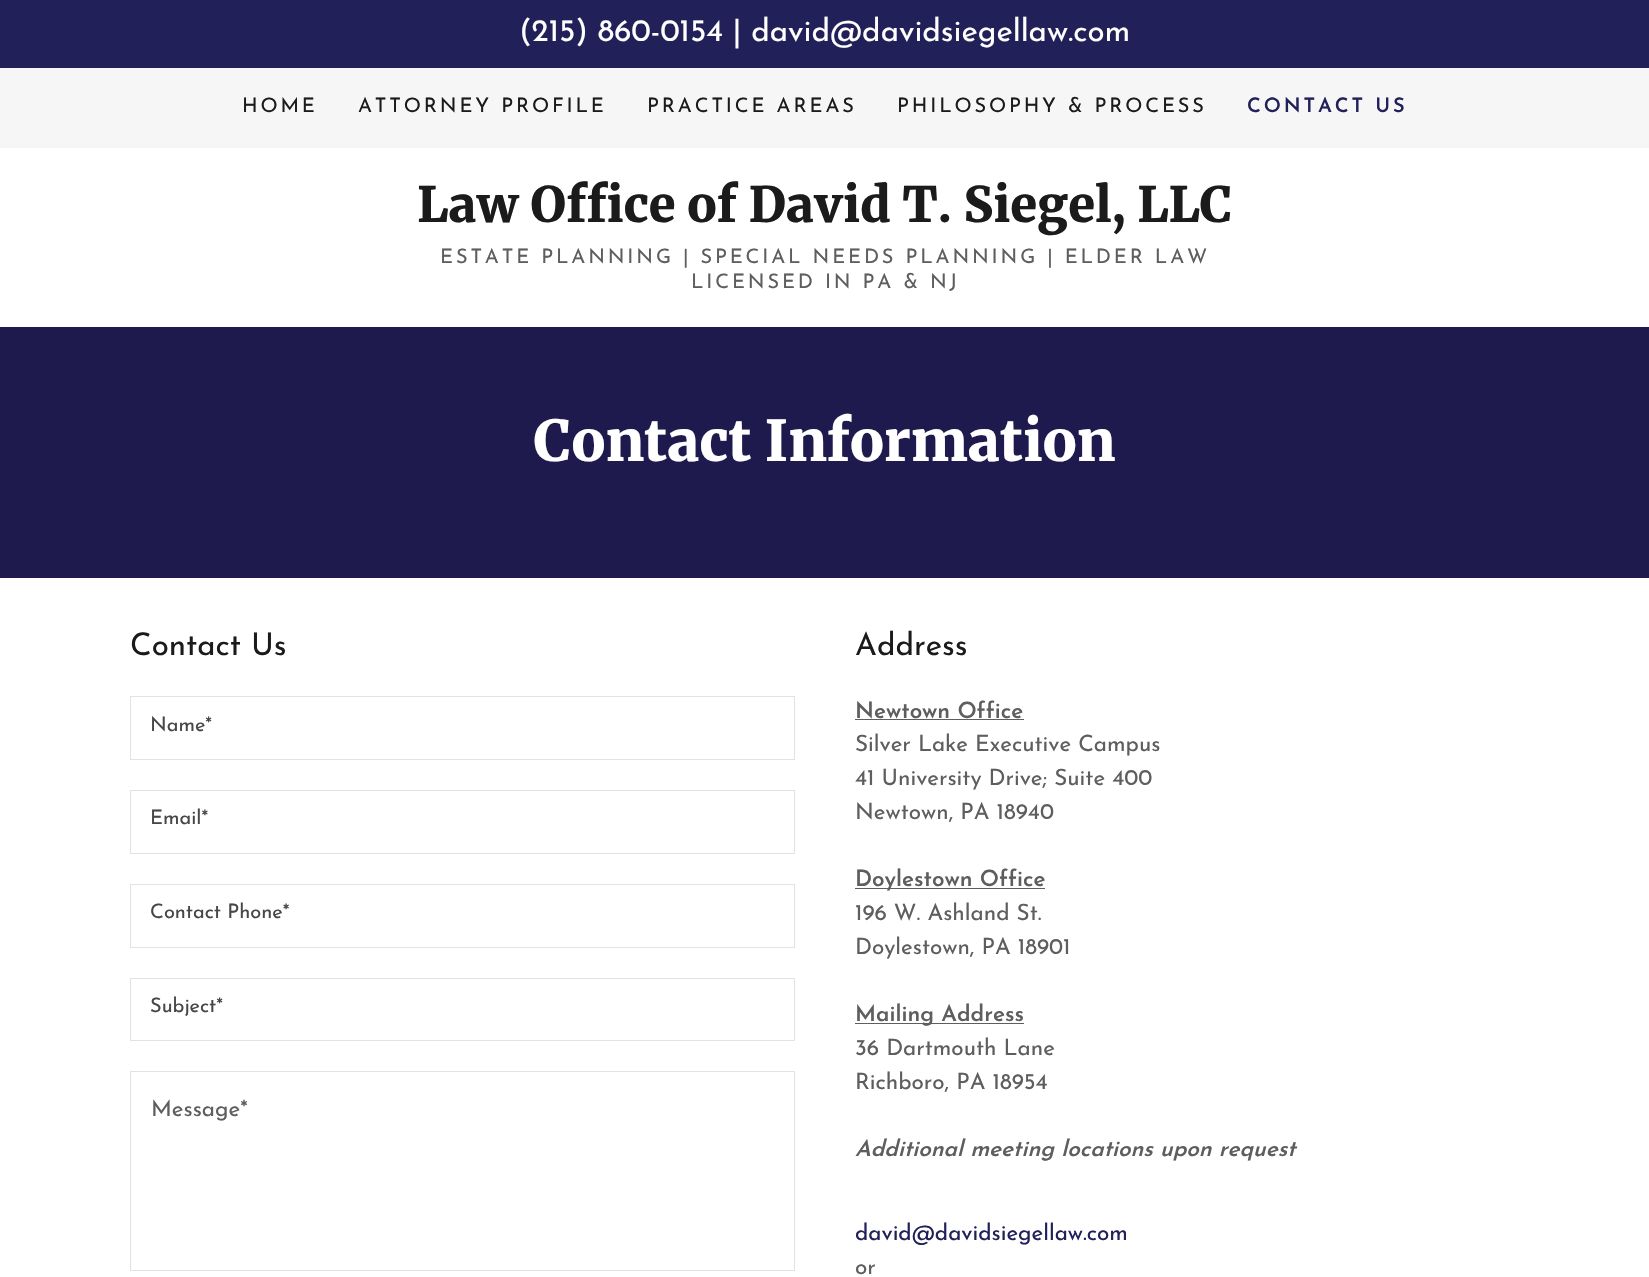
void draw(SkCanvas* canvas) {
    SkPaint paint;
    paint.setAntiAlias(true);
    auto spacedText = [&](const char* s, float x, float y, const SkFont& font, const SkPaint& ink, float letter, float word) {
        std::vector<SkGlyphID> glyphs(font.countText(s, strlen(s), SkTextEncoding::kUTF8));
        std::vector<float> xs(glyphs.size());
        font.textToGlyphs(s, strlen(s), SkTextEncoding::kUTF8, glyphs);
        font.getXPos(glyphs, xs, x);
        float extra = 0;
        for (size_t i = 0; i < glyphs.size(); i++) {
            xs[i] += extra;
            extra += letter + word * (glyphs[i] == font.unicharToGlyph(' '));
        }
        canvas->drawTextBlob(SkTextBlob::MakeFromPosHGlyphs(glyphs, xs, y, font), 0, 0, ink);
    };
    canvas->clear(0xFFFFFFFF);
    paint.setColor(0xFF222059);
    canvas->drawRect(SkRect::MakeXYWH(0, 0, 1649, 68), paint);
    SkFont font1(fontMgr->matchFamilyStyle("Josefin Sans", SkFontStyle::Normal()), 31.25f);
    font1.setSubpixel(true);
    paint.setColor(0xFFFFFFFF);
    canvas->drawString("(215) 860-0154 | david@davidsiegellaw.com", 519, 41, font1, paint);
    paint.setColor(0xFFF6F6F6);
    canvas->drawRect(SkRect::MakeXYWH(0, 68, 1649, 80), paint);
    SkFont font2(fontMgr->matchFamilyStyle("Josefin Sans", SkFontStyle::Normal()), 20);
    font2.setSubpixel(true);
    paint.setColor(0xFF1B1B1B);
    spacedText("HOME", 242, 112, font2, paint, 2.85f, 0);
    spacedText("ATTORNEY PROFILE", 358, 112, font2, paint, 2.85f, 0);
    spacedText("PRACTICE AREAS", 647, 112, font2, paint, 2.85f, 0);
    spacedText("PHILOSOPHY & PROCESS", 897, 112, font2, paint, 2.85f, 0);
    SkFont font3(fontMgr->matchFamilyStyle("Josefin Sans", SkFontStyle(600, SkFontStyle::kNormal_Width, SkFontStyle::kUpright_Slant)), 20);
    font3.setSubpixel(true);
    paint.setColor(0xFF222059);
    spacedText("CONTACT US", 1247, 112, font3, paint, 2.85f, 0);
    SkFont font4(fontMgr->matchFamilyStyle("Merriweather", SkFontStyle(300, SkFontStyle::kNormal_Width, SkFontStyle::kUpright_Slant)), 48.75f);
    font4.setSubpixel(true);
    paint.setColor(0xFF1B1B1B);
    canvas->drawString("Law Office of David T. Siegel, LLC", 417, 222, font4, paint);
    paint.setColor(0xFF5E5E5E);
    spacedText("ESTATE PLANNING | SPECIAL NEEDS PLANNING | ELDER LAW", 440, 263, font2, paint, 2.85f, 0);
    spacedText("LICENSED IN PA & NJ", 691, 288, font2, paint, 2.85f, 0);
    paint.setColor(0xFF1F1A4E);
    canvas->drawRect(SkRect::MakeXYWH(0, 327, 1649, 251), paint);
    SkFont font5(fontMgr->matchFamilyStyle("Merriweather", SkFontStyle(300, SkFontStyle::kNormal_Width, SkFontStyle::kUpright_Slant)), 56.25f);
    font5.setSubpixel(true);
    paint.setColor(0xFFFFFFFF);
    canvas->drawString("Contact Information", 534, 461, font5, paint);
    paint.setColor(0xFF1B1B1B);
    canvas->drawString("Contact Us", 130, 655, font1, paint);
    paint.setStyle(SkPaint::kStroke_Style);
    paint.setStrokeWidth(1);
    paint.setColor(0xFFE2E2E2);
    canvas->drawRect(SkRect::MakeXYWH(130.5f, 696.5f, 664, 63), paint);
    paint.setStyle(SkPaint::kFill_Style);
    paint.setColor(0xFF474747);
    canvas->drawString("Name*", 150, 731, font2, paint);
    paint.setStyle(SkPaint::kStroke_Style);
    paint.setColor(0xFFE2E2E2);
    canvas->drawRect(SkRect::MakeXYWH(130.5f, 790.5f, 664, 63), paint);
    paint.setStyle(SkPaint::kFill_Style);
    paint.setColor(0xFF474747);
    canvas->drawString("Email*", 150, 824, font2, paint);
    paint.setStyle(SkPaint::kStroke_Style);
    paint.setColor(0xFFE2E2E2);
    canvas->drawRect(SkRect::MakeXYWH(130.5f, 884.5f, 664, 63), paint);
    paint.setStyle(SkPaint::kFill_Style);
    paint.setColor(0xFF474747);
    canvas->drawString("Contact Phone*", 150, 918, font2, paint);
    paint.setStyle(SkPaint::kStroke_Style);
    paint.setColor(0xFFE2E2E2);
    canvas->drawRect(SkRect::MakeXYWH(130.5f, 978.5f, 664, 62), paint);
    paint.setStyle(SkPaint::kFill_Style);
    paint.setColor(0xFF474747);
    canvas->drawString("Subject*", 150, 1012, font2, paint);
    paint.setStyle(SkPaint::kStroke_Style);
    paint.setColor(0xFFE2E2E2);
    canvas->drawRect(SkRect::MakeXYWH(130.5f, 1071.5f, 664, 199), paint);
    SkFont font6(fontMgr->matchFamilyStyle("Josefin Sans", SkFontStyle::Normal()), 22.5f);
    font6.setSubpixel(true);
    paint.setStyle(SkPaint::kFill_Style);
    paint.setColor(0xFF5E5E5E);
    canvas->drawString("Message*", 151, 1116, font6, paint);
    paint.setColor(0xFF1B1B1B);
    canvas->drawString("Address", 855, 655, font1, paint);
    SkFont font7(fontMgr->matchFamilyStyle("Josefin Sans", SkFontStyle(600, SkFontStyle::kNormal_Width, SkFontStyle::kUpright_Slant)), 22.5f);
    font7.setSubpixel(true);
    paint.setColor(0xFF5E5E5E);
    canvas->drawString("Newtown Office", 855, 718, font7, paint);
    canvas->drawRect(SkRect::MakeXYWH(855, 719, 169, 1), paint);
    canvas->drawString("Silver Lake Executive Campus", 855, 751, font6, paint);
    canvas->drawString("41 University Drive; Suite 400", 855, 785, font6, paint);
    canvas->drawString("Newtown, PA 18940", 855, 819, font6, paint);
    canvas->drawRect(SkRect::MakeXYWH(855, 888, 190, 1), paint);
    canvas->drawString("Doylestown Office", 855, 886, font7, paint);
    canvas->drawString("196 W. Ashland St.", 855, 920, font6, paint);
    canvas->drawString("Doylestown, PA 18901", 855, 954, font6, paint);
    canvas->drawRect(SkRect::MakeXYWH(855, 1023, 169, 1), paint);
    canvas->drawString("Mailing Address", 855, 1021, font7, paint);
    canvas->drawString("36 Dartmouth Lane", 855, 1055, font6, paint);
    canvas->drawString("Richboro, PA 18954", 855, 1089, font6, paint);
    SkFont font8(fontMgr->matchFamilyStyle("Josefin Sans", SkFontStyle(600, SkFontStyle::kNormal_Width, SkFontStyle::kItalic_Slant)), 22.5f);
    font8.setSubpixel(true);
    canvas->drawString("Additional meeting locations upon request", 855, 1156, font8, paint);
    paint.setColor(0xFF222059);
    canvas->drawString("david@davidsiegellaw.com", 855, 1240, font6, paint);
    paint.setColor(0xFF5E5E5E);
    canvas->drawString("or", 855, 1274, font6, paint);
}
